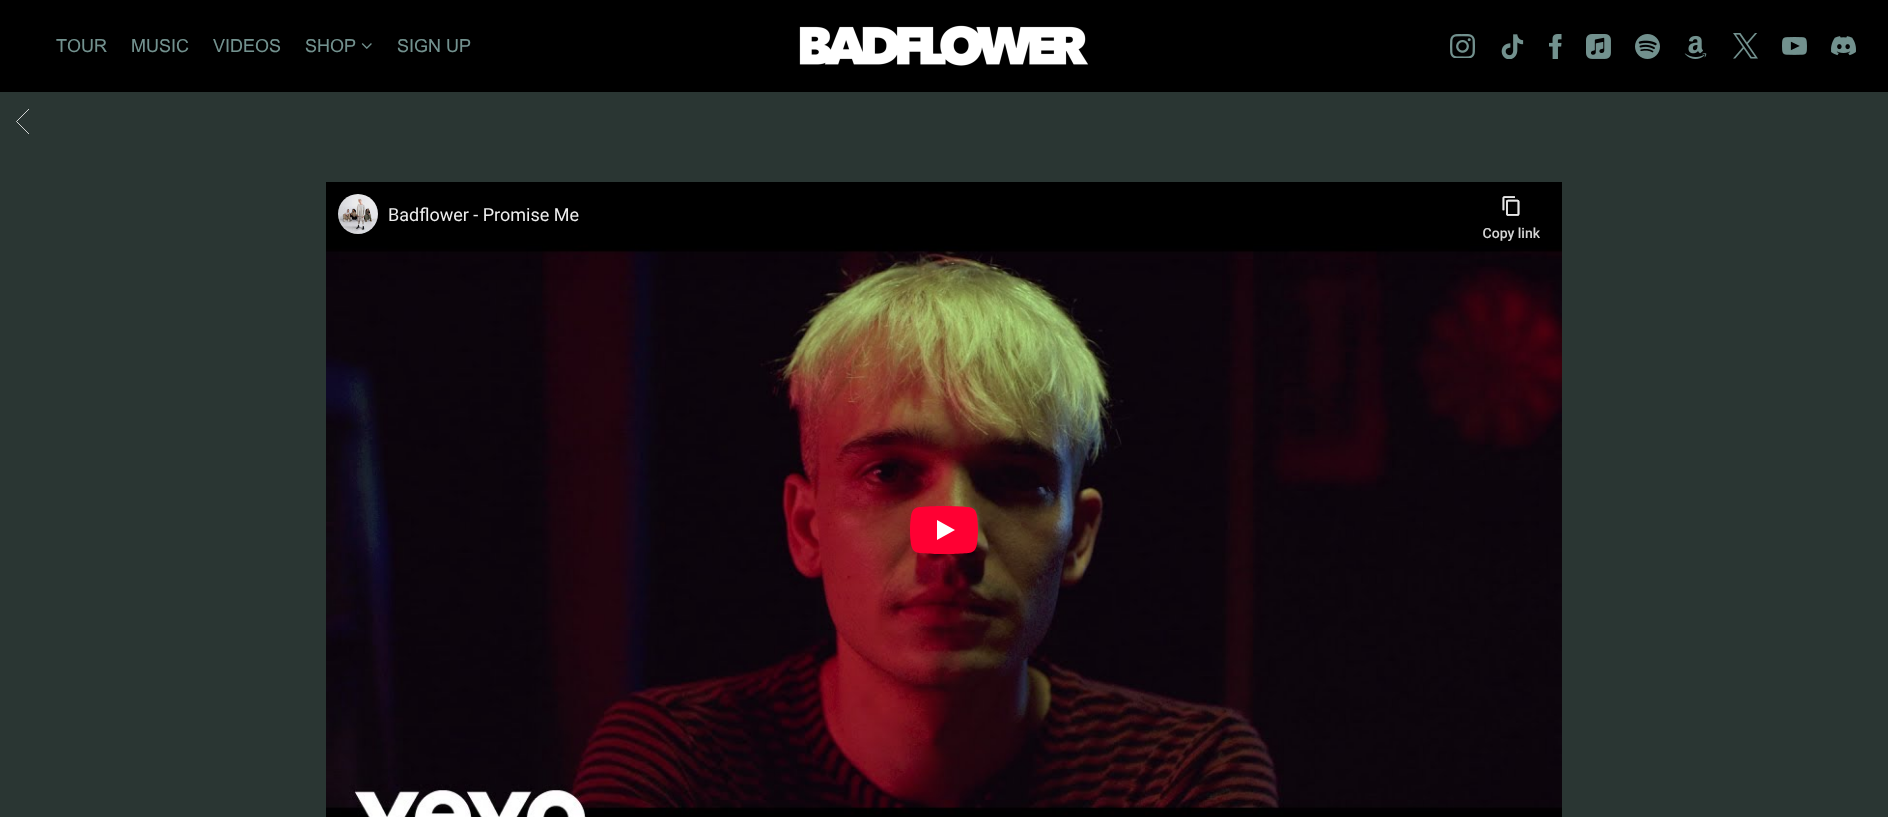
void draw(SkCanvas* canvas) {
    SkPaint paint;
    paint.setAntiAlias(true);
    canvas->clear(0xFF2A3633);
    paint.setColor(0xFF000000);
    canvas->drawRect(SkRect::MakeXYWH(0, 0, 1888, 92), paint);
    SkFont font1(fontMgr->matchFamilyStyle("Arial", SkFontStyle::Normal()), 18);
    font1.setSubpixel(true);
    paint.setColor(0xFF72918E);
    canvas->drawString("TOUR", 56, 52, font1, paint);
    canvas->drawString("MUSIC", 131, 52, font1, paint);
    canvas->drawString("VIDEOS", 213, 52, font1, paint);
    canvas->drawString("SHOP", 305, 52, font1, paint);
    canvas->drawImageRect(SkImages::DeferredFromEncodedData(SkData::MakeFromFileName("img1.png")), SkRect::MakeXYWH(361, 43, 11, 6), SkSamplingOptions());
    canvas->drawString("SIGN UP", 397, 52, font1, paint);
    canvas->drawImageRect(SkImages::DeferredFromEncodedData(SkData::MakeFromFileName("img2.png")), SkRect::MakeXYWH(799, 25, 290, 41), SkSamplingOptions());
    canvas->drawImageRect(SkImages::DeferredFromEncodedData(SkData::MakeFromFileName("img3.png")), SkRect::MakeXYWH(1450, 34, 25, 24), SkSamplingOptions());
    canvas->drawImageRect(SkImages::DeferredFromEncodedData(SkData::MakeFromFileName("img4.png")), SkRect::MakeXYWH(1501, 34, 23, 25), SkSamplingOptions());
    canvas->drawImageRect(SkImages::DeferredFromEncodedData(SkData::MakeFromFileName("img5.png")), SkRect::MakeXYWH(1549, 34, 13, 25), SkSamplingOptions());
    canvas->drawImageRect(SkImages::DeferredFromEncodedData(SkData::MakeFromFileName("img6.png")), SkRect::MakeXYWH(1586, 34, 25, 25), SkSamplingOptions());
    canvas->drawImageRect(SkImages::DeferredFromEncodedData(SkData::MakeFromFileName("img7.png")), SkRect::MakeXYWH(1635, 34, 25, 25), SkSamplingOptions());
    canvas->drawImageRect(SkImages::DeferredFromEncodedData(SkData::MakeFromFileName("img8.png")), SkRect::MakeXYWH(1684, 35, 23, 24), SkSamplingOptions());
    canvas->drawImageRect(SkImages::DeferredFromEncodedData(SkData::MakeFromFileName("img9.png")), SkRect::MakeXYWH(1733, 33, 25, 26), SkSamplingOptions());
    canvas->drawImageRect(SkImages::DeferredFromEncodedData(SkData::MakeFromFileName("img10.png")), SkRect::MakeXYWH(1782, 37, 25, 18), SkSamplingOptions());
    canvas->drawImageRect(SkImages::DeferredFromEncodedData(SkData::MakeFromFileName("img11.png")), SkRect::MakeXYWH(1831, 36, 25, 20), SkSamplingOptions());
    canvas->save();
    canvas->clipRect(SkRect::MakeXYWH(16, 109, 13, 25));
    paint.setStyle(SkPaint::kStroke_Style);
    paint.setStrokeWidth(0.8f);
    paint.setColor(0xFFFFFFFF);
    canvas->drawPath(SkPathBuilder().moveTo(29, 134).lineTo(16.5f, 121.5f).lineTo(29, 109).detach(), paint);
    canvas->restore();
    canvas->drawImageRect(SkImages::DeferredFromEncodedData(SkData::MakeFromFileName("img12.png")), SkRect::MakeXYWH(326, 182, 1236, 635), SkSamplingOptions());
}
